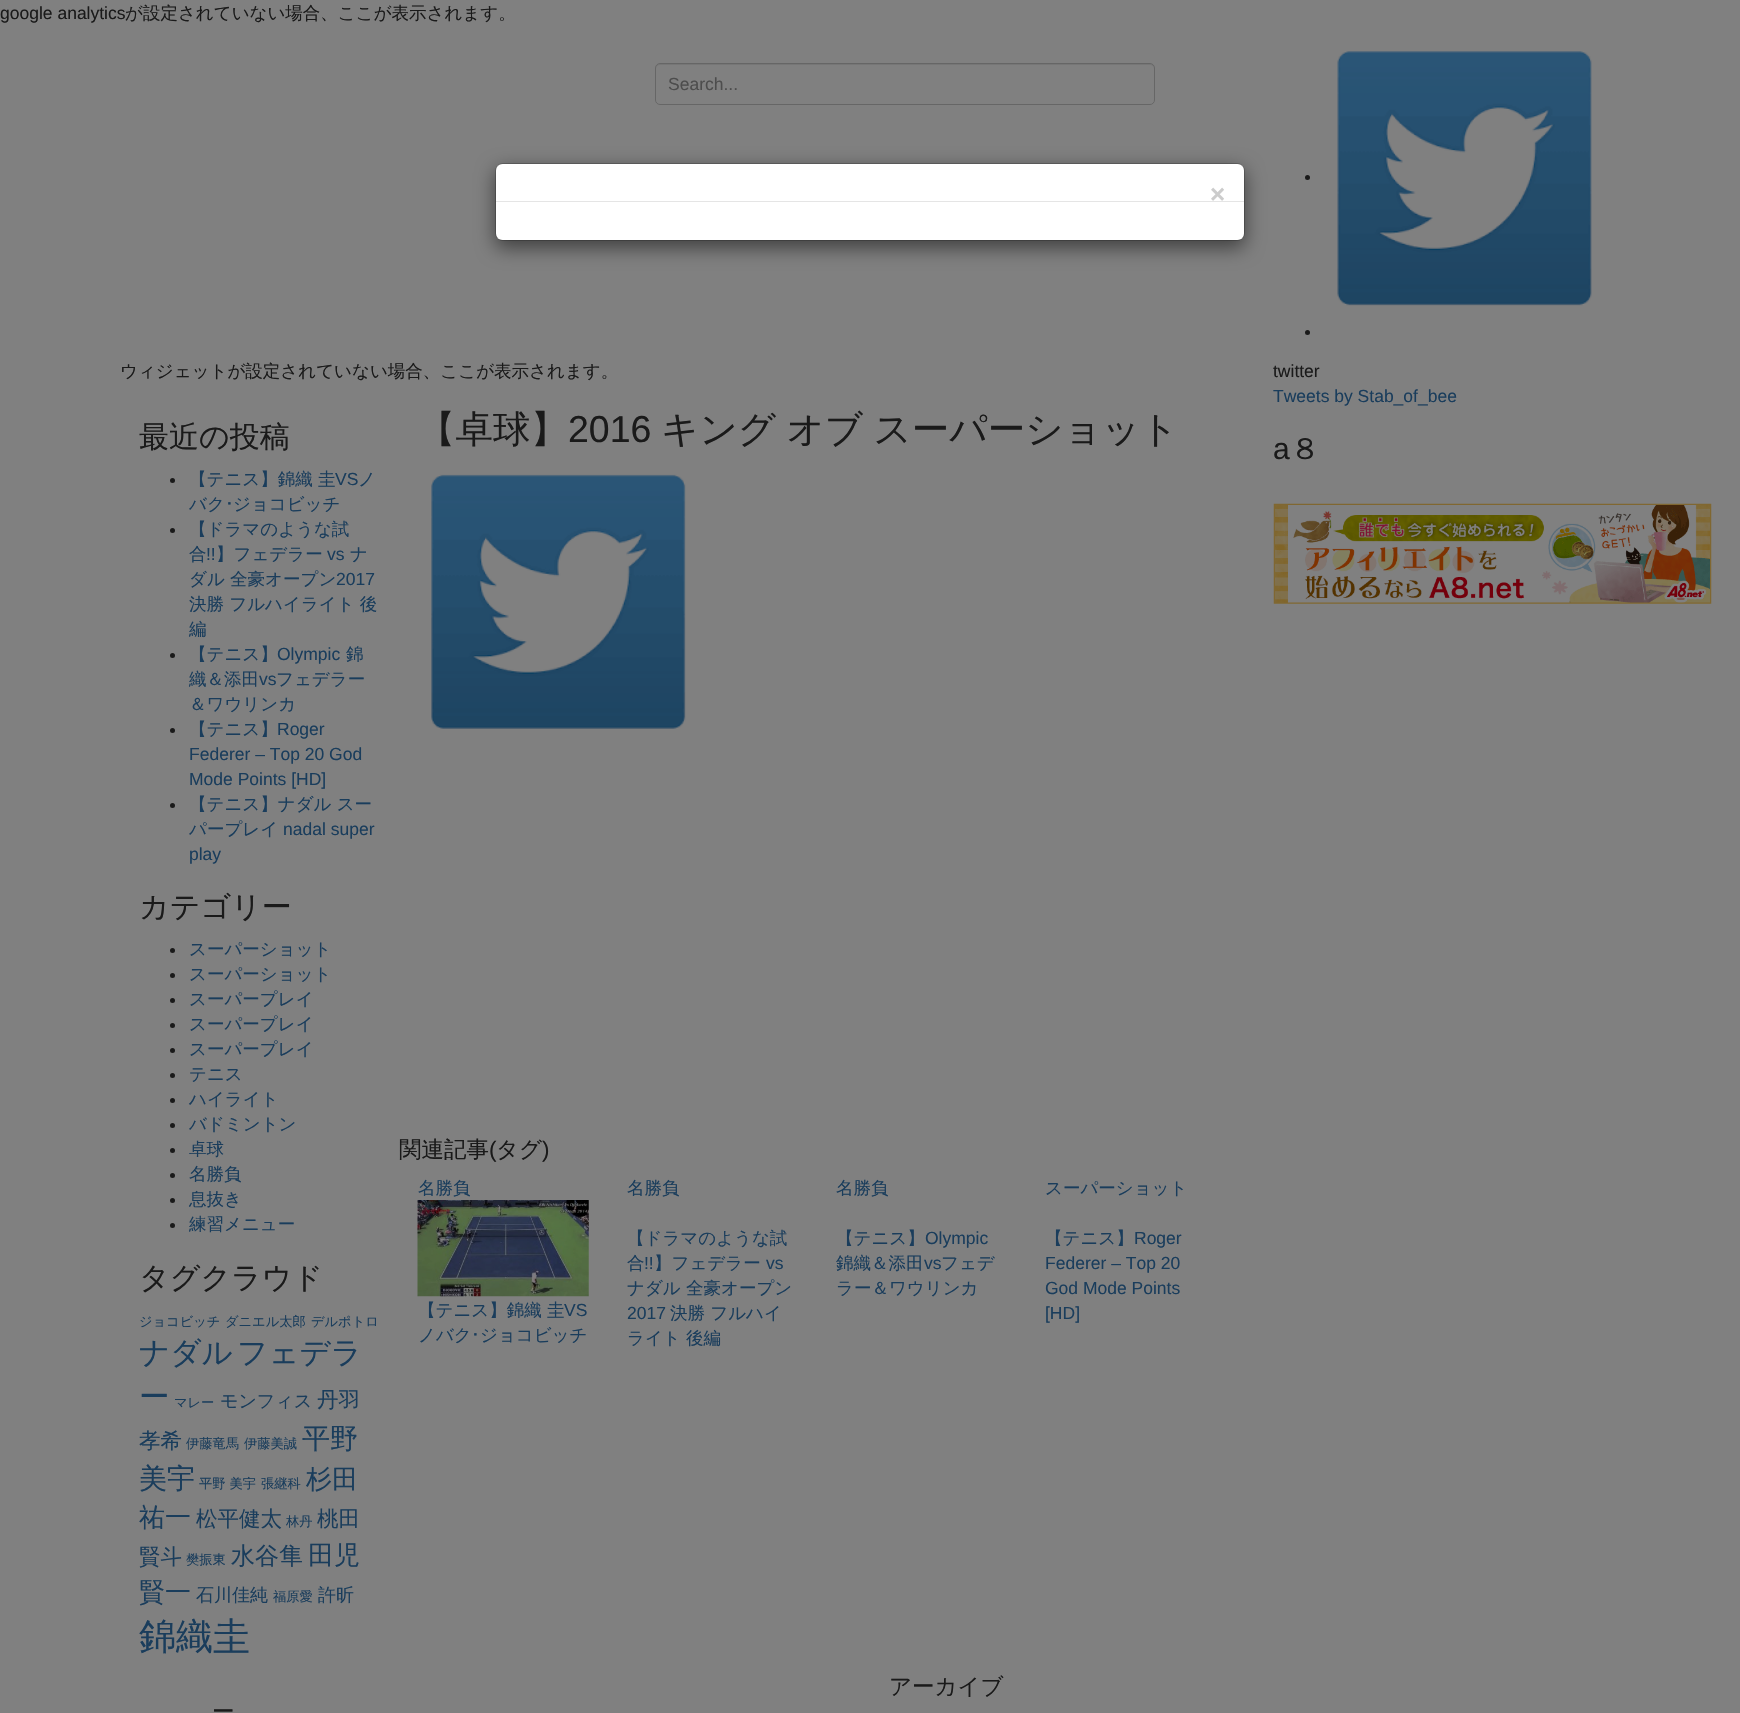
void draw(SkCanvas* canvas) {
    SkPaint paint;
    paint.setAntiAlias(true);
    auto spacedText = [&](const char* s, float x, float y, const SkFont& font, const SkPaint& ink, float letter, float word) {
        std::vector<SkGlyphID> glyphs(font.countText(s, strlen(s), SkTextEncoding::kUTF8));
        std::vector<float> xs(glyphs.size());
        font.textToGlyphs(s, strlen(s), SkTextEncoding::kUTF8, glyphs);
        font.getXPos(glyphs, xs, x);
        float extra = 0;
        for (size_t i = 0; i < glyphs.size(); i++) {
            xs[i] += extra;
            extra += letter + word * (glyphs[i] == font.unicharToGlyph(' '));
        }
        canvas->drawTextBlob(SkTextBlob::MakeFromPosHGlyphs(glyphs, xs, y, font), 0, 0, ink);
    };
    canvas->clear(0xFF808080);
    SkFont font1(fontMgr->matchFamilyStyle("Liberation Sans", SkFontStyle::Normal()), 17.5f);
    font1.setSubpixel(true);
    paint.setColor(0xFF1A1A1A);
    canvas->drawString("google analytics", 0, 19, font1, paint);
    SkFont font2(fontMgr->matchFamilyStyle("WenQuanYi Zen Hei", SkFontStyle(500, SkFontStyle::kNormal_Width, SkFontStyle::kUpright_Slant)), 17.5f);
    font2.setSubpixel(true);
    canvas->drawString("が設定されていない場合、ここが表示されます。", 125, 19, font2, paint);
    paint.setColor(0xFF767676);
    canvas->drawPath(SkPathBuilder().moveTo(660, 65).lineTo(1150, 65).cubicTo(1152, 65, 1154, 67, 1154, 69).cubicTo(1154, 66, 1153, 64, 1150, 64).lineTo(660, 64).cubicTo(657, 64, 656, 66, 656, 69).cubicTo(656, 67, 658, 65, 660, 65).close().detach(), paint);
    paint.setStyle(SkPaint::kStroke_Style);
    paint.setStrokeWidth(1);
    paint.setColor(0xFF666666);
    canvas->drawRoundRect(SkRect::MakeXYWH(655.5f, 63.5f, 499, 41), 4.5f, 4.5f, paint);
    paint.setStyle(SkPaint::kFill_Style);
    paint.setColor(0xFF4D4D4D);
    canvas->drawString("Search...", 668, 90, font1, paint);
    paint.setColor(0xFF1A1A1A);
    canvas->drawCircle(1307.5f, 177.5f, 2.5f, paint);
    canvas->drawImageRect(SkImages::DeferredFromEncodedData(SkData::MakeFromFileName("img1.png")), SkRect::MakeXYWH(1337, 51, 255, 255), SkSamplingOptions());
    canvas->drawCircle(1307.5f, 332.5f, 2.5f, paint);
    paint.setColor(0x80000000);
    paint.setMaskFilter(SkMaskFilter::MakeBlur(kNormal_SkBlurStyle, 9.5f));
    canvas->drawRoundRect(SkRect::MakeXYWH(495, 169, 750, 79), 8, 8, paint);
    paint.setMaskFilter(nullptr);
    paint.setColor(0xFFFFFFFF);
    canvas->drawRoundRect(SkRect::MakeXYWH(496, 164, 748, 76), 6, 6, paint);
    paint.setStyle(SkPaint::kStroke_Style);
    paint.setColor(0x33000000);
    canvas->drawRoundRect(SkRect::MakeXYWH(495.5f, 163.5f, 749, 77), 7.5f, 7.5f, paint);
    paint.setStyle(SkPaint::kFill_Style);
    paint.setColor(0xFFE5E5E5);
    canvas->drawRect(SkRect::MakeXYWH(496, 201, 748, 1), paint);
    SkFont font3(fontMgr->matchFamilyStyle("Liberation Sans", SkFontStyle::Bold()), 26);
    font3.setSubpixel(true);
    paint.setColor(0xFFCCCCCC);
    canvas->drawString("×", 1210, 203, font3, paint);
    paint.setColor(0xFF1A1A1A);
    canvas->drawString("ウィジェットが設定されていない場合、ここが表示されます。", 120, 377, font2, paint);
    SkFont font4(fontMgr->matchFamilyStyle("WenQuanYi Zen Hei", SkFontStyle(500, SkFontStyle::kNormal_Width, SkFontStyle::kUpright_Slant)), 30);
    font4.setSubpixel(true);
    canvas->drawString("最近の投稿", 139, 447, font4, paint);
    canvas->drawCircle(172.5f, 480.5f, 2.5f, paint);
    paint.setColor(0xFF1A3D5C);
    canvas->drawString("【テニス】錦織 圭", 189, 485, font2, paint);
    canvas->drawString("VS", 335, 485, font1, paint);
    canvas->drawString("ノ", 358, 485, font2, paint);
    canvas->drawString("バク", 189, 510, font2, paint);
    SkFont font5(fontMgr->matchFamilyStyle("IPAPGothic", SkFontStyle::Normal()), 17.5f);
    font5.setSubpixel(true);
    canvas->drawString("･", 225, 510, font5, paint);
    canvas->drawString("ジョコビッチ", 233, 510, font2, paint);
    paint.setColor(0xFF1A1A1A);
    canvas->drawCircle(172.5f, 530.5f, 2.5f, paint);
    paint.setColor(0xFF1A3D5C);
    canvas->drawString("【ドラマのような試", 189, 535, font2, paint);
    canvas->drawString("合", 189, 560, font2, paint);
    canvas->drawString("!!", 206, 560, font1, paint);
    canvas->drawString("】フェデラー", 216, 560, font2, paint);
    canvas->drawString("vs", 327, 560, font1, paint);
    canvas->drawString("ナ", 350, 560, font2, paint);
    canvas->drawString("ダル 全豪オープン", 189, 585, font2, paint);
    canvas->drawString("2017", 336, 585, font1, paint);
    canvas->drawString("決勝 フルハイライト 後", 189, 610, font2, paint);
    canvas->drawString("編", 189, 635, font2, paint);
    paint.setColor(0xFF1A1A1A);
    canvas->drawCircle(172.5f, 655.5f, 2.5f, paint);
    paint.setColor(0xFF1A3D5C);
    canvas->drawString("【テニス】", 189, 660, font2, paint);
    canvas->drawString("Olympic", 277, 660, font1, paint);
    canvas->drawString("錦", 346, 660, font2, paint);
    canvas->drawString("織＆添田", 189, 685, font2, paint);
    canvas->drawString("vs", 259, 685, font1, paint);
    canvas->drawString("フェデラー", 276, 685, font2, paint);
    canvas->drawString("＆ワウリンカ", 189, 710, font2, paint);
    paint.setColor(0xFF1A1A1A);
    canvas->drawCircle(172.5f, 730.5f, 2.5f, paint);
    paint.setColor(0xFF1A3D5C);
    canvas->drawString("【テニス】", 189, 735, font2, paint);
    canvas->drawString("Roger", 277, 735, font1, paint);
    canvas->drawString("Federer – Top 20 God", 189, 760, font1, paint);
    canvas->drawString("Mode Points [HD]", 189, 785, font1, paint);
    paint.setColor(0xFF1A1A1A);
    canvas->drawCircle(172.5f, 805.5f, 2.5f, paint);
    paint.setColor(0xFF1A3D5C);
    canvas->drawString("【テニス】ナダル スー", 189, 810, font2, paint);
    canvas->drawString("パープレイ", 189, 835, font2, paint);
    canvas->drawString("nadal super", 283, 835, font1, paint);
    canvas->drawString("play", 189, 860, font1, paint);
    paint.setColor(0xFF1A1A1A);
    canvas->drawString("カテゴリー", 139, 917, font4, paint);
    canvas->drawCircle(172.5f, 950.5f, 2.5f, paint);
    paint.setColor(0xFF1A3D5C);
    canvas->drawString("スーパーショット", 189, 955, font2, paint);
    paint.setColor(0xFF1A1A1A);
    canvas->drawCircle(172.5f, 975.5f, 2.5f, paint);
    paint.setColor(0xFF1A3D5C);
    canvas->drawString("スーパーショット", 189, 980, font2, paint);
    paint.setColor(0xFF1A1A1A);
    canvas->drawCircle(172.5f, 1000.5f, 2.5f, paint);
    paint.setColor(0xFF1A3D5C);
    canvas->drawString("スーパープレイ", 189, 1005, font2, paint);
    paint.setColor(0xFF1A1A1A);
    canvas->drawCircle(172.5f, 1025.5f, 2.5f, paint);
    paint.setColor(0xFF1A3D5C);
    canvas->drawString("スーパープレイ", 189, 1030, font2, paint);
    paint.setColor(0xFF1A1A1A);
    canvas->drawCircle(172.5f, 1050.5f, 2.5f, paint);
    paint.setColor(0xFF1A3D5C);
    canvas->drawString("スーパープレイ", 189, 1055, font2, paint);
    paint.setColor(0xFF1A1A1A);
    canvas->drawCircle(172.5f, 1075.5f, 2.5f, paint);
    paint.setColor(0xFF1A3D5C);
    canvas->drawString("テニス", 189, 1080, font2, paint);
    paint.setColor(0xFF1A1A1A);
    canvas->drawCircle(172.5f, 1100.5f, 2.5f, paint);
    paint.setColor(0xFF1A3D5C);
    canvas->drawString("ハイライト", 189, 1105, font2, paint);
    paint.setColor(0xFF1A1A1A);
    canvas->drawCircle(172.5f, 1125.5f, 2.5f, paint);
    paint.setColor(0xFF1A3D5C);
    canvas->drawString("バドミントン", 189, 1130, font2, paint);
    paint.setColor(0xFF1A1A1A);
    canvas->drawCircle(172.5f, 1150.5f, 2.5f, paint);
    paint.setColor(0xFF1A3D5C);
    canvas->drawString("卓球", 189, 1155, font2, paint);
    paint.setColor(0xFF1A1A1A);
    canvas->drawCircle(172.5f, 1175.5f, 2.5f, paint);
    paint.setColor(0xFF1A3D5C);
    canvas->drawString("名勝負", 189, 1180, font2, paint);
    paint.setColor(0xFF1A1A1A);
    canvas->drawCircle(172.5f, 1200.5f, 2.5f, paint);
    paint.setColor(0xFF1A3D5C);
    canvas->drawString("息抜き", 189, 1205, font2, paint);
    paint.setColor(0xFF1A1A1A);
    canvas->drawCircle(172.5f, 1225.5f, 2.5f, paint);
    paint.setColor(0xFF1A3D5C);
    canvas->drawString("練習メニュー", 189, 1230, font2, paint);
    paint.setColor(0xFF1A1A1A);
    canvas->drawString("タグクラウド", 139, 1288, font4, paint);
    SkFont font6(fontMgr->matchFamilyStyle("WenQuanYi Zen Hei", SkFontStyle(500, SkFontStyle::kNormal_Width, SkFontStyle::kUpright_Slant)), 13.25f);
    font6.setSubpixel(true);
    paint.setColor(0xFF1A3D5C);
    canvas->drawString("ジョコビッチ", 139, 1326, font6, paint);
    canvas->drawString("ダニエル太郎", 225, 1326, font6, paint);
    canvas->drawString("デルポトロ", 311, 1326, font6, paint);
    SkFont font7(fontMgr->matchFamilyStyle("WenQuanYi Zen Hei", SkFontStyle(500, SkFontStyle::kNormal_Width, SkFontStyle::kUpright_Slant)), 30.5f);
    font7.setSubpixel(true);
    canvas->drawString("ナダル", 139, 1363, font7, paint);
    canvas->drawString("フェデラ", 237, 1363, font7, paint);
    canvas->drawString("ー", 139, 1407, font7, paint);
    canvas->drawString("マレー", 174, 1407, font6, paint);
    SkFont font8(fontMgr->matchFamilyStyle("WenQuanYi Zen Hei", SkFontStyle(500, SkFontStyle::kNormal_Width, SkFontStyle::kUpright_Slant)), 18);
    font8.setSubpixel(true);
    canvas->drawString("モンフィス", 220, 1407, font8, paint);
    SkFont font9(fontMgr->matchFamilyStyle("WenQuanYi Zen Hei", SkFontStyle(500, SkFontStyle::kNormal_Width, SkFontStyle::kUpright_Slant)), 21.5f);
    font9.setSubpixel(true);
    canvas->drawString("丹羽", 317, 1407, font9, paint);
    canvas->drawString("孝希", 139, 1448, font9, paint);
    canvas->drawString("伊藤竜馬", 186, 1448, font6, paint);
    canvas->drawString("伊藤美誠", 244, 1448, font6, paint);
    SkFont font10(fontMgr->matchFamilyStyle("WenQuanYi Zen Hei", SkFontStyle(500, SkFontStyle::kNormal_Width, SkFontStyle::kUpright_Slant)), 28);
    font10.setSubpixel(true);
    canvas->drawString("平野", 302, 1448, font10, paint);
    canvas->drawString("美宇", 139, 1488, font10, paint);
    canvas->drawString("平野 美宇", 199, 1488, font6, paint);
    canvas->drawString("張継科", 261, 1488, font6, paint);
    SkFont font11(fontMgr->matchFamilyStyle("WenQuanYi Zen Hei", SkFontStyle(500, SkFontStyle::kNormal_Width, SkFontStyle::kUpright_Slant)), 26);
    font11.setSubpixel(true);
    canvas->drawString("杉田", 306, 1488, font11, paint);
    canvas->drawString("祐一", 139, 1526, font11, paint);
    canvas->drawString("松平健太", 196, 1526, font9, paint);
    canvas->drawString("林丹", 286, 1526, font6, paint);
    canvas->drawString("桃田", 317, 1526, font9, paint);
    canvas->drawString("賢斗", 139, 1564, font9, paint);
    canvas->drawString("樊振東", 186, 1564, font6, paint);
    SkFont font12(fontMgr->matchFamilyStyle("WenQuanYi Zen Hei", SkFontStyle(500, SkFontStyle::kNormal_Width, SkFontStyle::kUpright_Slant)), 24);
    font12.setSubpixel(true);
    canvas->drawString("水谷隼", 231, 1564, font12, paint);
    canvas->drawString("田児", 308, 1564, font11, paint);
    canvas->drawString("賢一", 139, 1601, font11, paint);
    canvas->drawString("石川佳純", 196, 1601, font8, paint);
    canvas->drawString("福原愛", 273, 1601, font6, paint);
    canvas->drawString("許昕", 318, 1601, font8, paint);
    SkFont font13(fontMgr->matchFamilyStyle("WenQuanYi Zen Hei", SkFontStyle(500, SkFontStyle::kNormal_Width, SkFontStyle::kUpright_Slant)), 37);
    font13.setSubpixel(true);
    canvas->drawString("錦織圭", 139, 1649, font13, paint);
    SkFont font14(fontMgr->matchFamilyStyle("WenQuanYi Zen Hei", SkFontStyle(500, SkFontStyle::kNormal_Width, SkFontStyle::kUpright_Slant)), 37.5f);
    font14.setSubpixel(true);
    paint.setColor(0xFF1A1A1A);
    canvas->drawString("【卓球】", 418, 442, font14, paint);
    SkFont font15(fontMgr->matchFamilyStyle("Liberation Sans", SkFontStyle::Normal()), 37.5f);
    font15.setSubpixel(true);
    canvas->drawString("2016", 568, 442, font15, paint);
    spacedText("キング オブ スーパーショット", 661, 442, font14, paint, 0, -1);
    canvas->drawImageRect(SkImages::DeferredFromEncodedData(SkData::MakeFromFileName("img2.png")), SkRect::MakeXYWH(431, 474, 255, 255), SkSamplingOptions());
    SkFont font16(fontMgr->matchFamilyStyle("WenQuanYi Zen Hei", SkFontStyle(500, SkFontStyle::kNormal_Width, SkFontStyle::kUpright_Slant)), 22.5f);
    font16.setSubpixel(true);
    canvas->drawString("関連記事", 399, 1157, font16, paint);
    SkFont font17(fontMgr->matchFamilyStyle("Liberation Sans", SkFontStyle::Normal()), 22.5f);
    font17.setSubpixel(true);
    canvas->drawString("(", 489, 1157, font17, paint);
    canvas->drawString("タグ", 496, 1157, font16, paint);
    canvas->drawString(")", 542, 1157, font17, paint);
    paint.setColor(0xFF1A3D5C);
    canvas->drawString("名勝負", 418, 1194, font2, paint);
    canvas->drawImageRect(SkImages::DeferredFromEncodedData(SkData::MakeFromFileName("img3.png")), SkRect::MakeXYWH(417, 1200, 172, 97), SkSamplingOptions());
    canvas->drawString("【テニス】錦織 圭", 418, 1316, font2, paint);
    canvas->drawString("VS", 564, 1316, font1, paint);
    canvas->drawString("ノバク", 418, 1341, font2, paint);
    canvas->drawString("･", 471, 1341, font5, paint);
    canvas->drawString("ジョコビッチ", 480, 1341, font2, paint);
    canvas->drawString("名勝負", 627, 1194, font2, paint);
    canvas->drawString("【ドラマのような試", 627, 1244, font2, paint);
    canvas->drawString("合", 627, 1269, font2, paint);
    canvas->drawString("!!", 644, 1269, font1, paint);
    canvas->drawString("】フェデラー", 654, 1269, font2, paint);
    canvas->drawString("vs", 766, 1269, font1, paint);
    canvas->drawString("ナダル 全豪オープン", 627, 1294, font2, paint);
    canvas->drawString("2017", 627, 1319, font1, paint);
    canvas->drawString("決勝 フルハイ", 670, 1319, font2, paint);
    canvas->drawString("ライト 後編", 627, 1344, font2, paint);
    canvas->drawString("名勝負", 836, 1194, font2, paint);
    canvas->drawString("【テニス】", 836, 1244, font2, paint);
    canvas->drawString("Olympic", 925, 1244, font1, paint);
    canvas->drawString("錦織＆添田", 836, 1269, font2, paint);
    canvas->drawString("vs", 924, 1269, font1, paint);
    canvas->drawString("フェデ", 941, 1269, font2, paint);
    canvas->drawString("ラー＆ワウリンカ", 836, 1294, font2, paint);
    canvas->drawString("スーパーショット", 1045, 1194, font2, paint);
    canvas->drawString("【テニス】", 1045, 1244, font2, paint);
    canvas->drawString("Roger", 1134, 1244, font1, paint);
    canvas->drawString("Federer – Top 20", 1045, 1269, font1, paint);
    canvas->drawString("God Mode Points", 1045, 1294, font1, paint);
    canvas->drawString("[HD]", 1045, 1319, font1, paint);
    paint.setColor(0xFF1A1A1A);
    canvas->drawString("twitter", 1273, 377, font1, paint);
    paint.setColor(0xFF1A3D5C);
    canvas->drawString("Tweets by Stab_of_bee", 1273, 402, font1, paint);
    SkFont font18(fontMgr->matchFamilyStyle("Liberation Sans", SkFontStyle::Normal()), 30);
    font18.setSubpixel(true);
    paint.setColor(0xFF1A1A1A);
    canvas->drawString("a", 1273, 459, font18, paint);
    canvas->drawString("８", 1290, 459, font4, paint);
    canvas->drawImageRect(SkImages::DeferredFromEncodedData(SkData::MakeFromFileName("img4.png")), SkRect::MakeXYWH(1273, 503, 439, 101), SkSamplingOptions());
    canvas->drawString("アーカイブ", 889, 1694, font16, paint);
    canvas->drawString("ー", 212, 1719, font16, paint);
}
